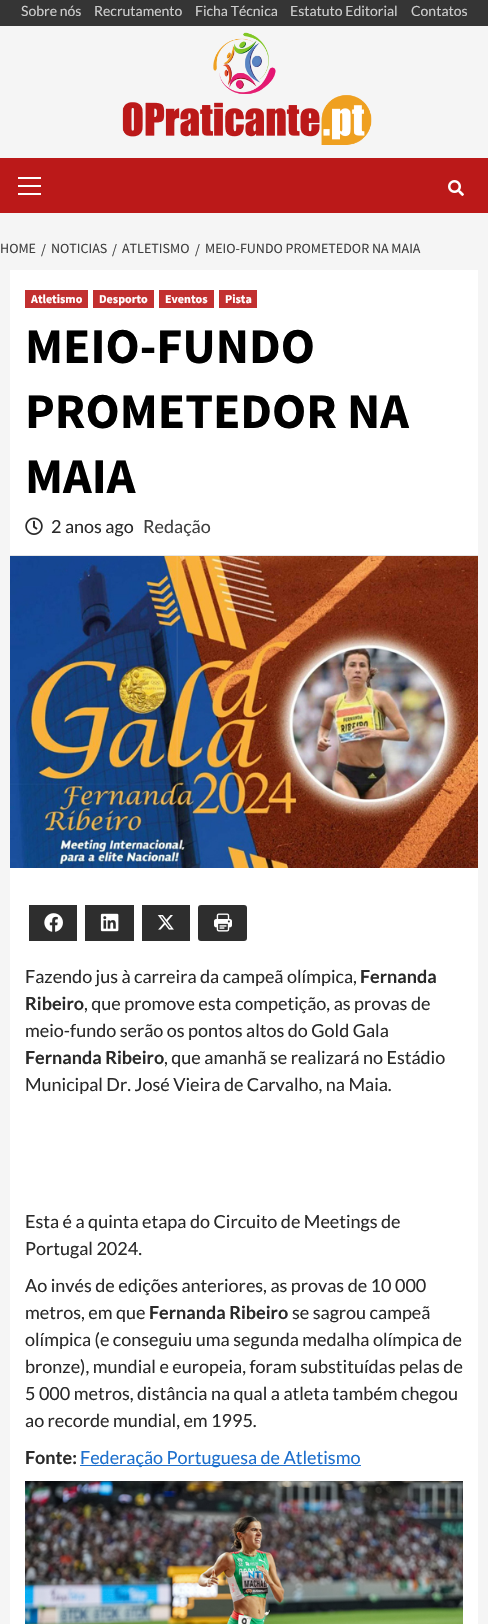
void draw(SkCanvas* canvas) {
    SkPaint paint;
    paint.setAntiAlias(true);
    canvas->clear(0xFFF5F5F5);
    paint.setColor(0xFF353535);
    canvas->drawRect(SkRect::MakeXYWH(0, 0, 488, 26), paint);
    SkFont font1(fontMgr->matchFamilyStyle("Lato", SkFontStyle::Normal()), 14);
    font1.setSubpixel(true);
    paint.setColor(0xFFCDCDCD);
    canvas->drawString("Sobre nós", 21, 16, font1, paint);
    canvas->drawString("Recrutamento", 94, 16, font1, paint);
    canvas->drawString("Ficha Técnica", 195, 16, font1, paint);
    canvas->drawString("Estatuto Editorial", 290, 16, font1, paint);
    canvas->drawString("Contatos", 411, 16, font1, paint);
    canvas->drawImageRect(SkImages::DeferredFromEncodedData(SkData::MakeFromFileName("img1.png")), SkRect::MakeXYWH(122, 32, 250, 113), SkSamplingOptions());
    paint.setColor(0xFFBB1919);
    canvas->drawRect(SkRect::MakeXYWH(0, 158, 488, 55), paint);
    paint.setColor(0xFFFFFFFF);
    canvas->drawRect(SkRect::MakeXYWH(18, 185, 23, 2), paint);
    canvas->drawRect(SkRect::MakeXYWH(18, 177, 23, 2), paint);
    canvas->drawRect(SkRect::MakeXYWH(18, 193, 23, 2), paint);
    canvas->drawImageRect(SkImages::DeferredFromEncodedData(SkData::MakeFromFileName("img2.png")), SkRect::MakeXYWH(448, 180, 16, 16), SkSamplingOptions());
    SkFont font2(fontMgr->matchFamilyStyle("Source Sans Pro", SkFontStyle::Normal()), 14);
    font2.setSubpixel(true);
    paint.setColor(0xFF404040);
    canvas->drawString("HOME", 0, 253, font2, paint);
    canvas->drawString("/", 41, 254, font2, paint);
    canvas->drawString("NOTICIAS", 51, 253, font2, paint);
    canvas->drawString("/", 112, 254, font2, paint);
    canvas->drawString("ATLETISMO", 122, 253, font2, paint);
    canvas->drawString("/", 195, 254, font2, paint);
    canvas->drawString("MEIO-FUNDO PROMETEDOR NA MAIA", 205, 253, font2, paint);
    paint.setColor(0xFFFFFFFF);
    canvas->drawRect(SkRect::MakeXYWH(10, 270, 468, 1354), paint);
    paint.setColor(0xFFE6E6E6);
    canvas->drawRect(SkRect::MakeXYWH(10, 555, 468, 1), paint);
    paint.setColor(0xFFC23030);
    canvas->drawRect(SkRect::MakeXYWH(25, 290, 63, 18), paint);
    SkFont font3(fontMgr->matchFamilyStyle("Source Sans Pro", SkFontStyle::Bold()), 12);
    font3.setSubpixel(true);
    paint.setColor(0xFFFFFFFF);
    canvas->drawString("Atletismo", 31, 303, font3, paint);
    paint.setColor(0xFFC23030);
    canvas->drawRect(SkRect::MakeXYWH(93, 290, 61, 18), paint);
    paint.setColor(0xFFFFFFFF);
    canvas->drawString("Desporto", 99, 303, font3, paint);
    paint.setColor(0xFFC23030);
    canvas->drawRect(SkRect::MakeXYWH(159, 290, 55, 18), paint);
    paint.setColor(0xFFFFFFFF);
    canvas->drawString("Eventos", 165, 303, font3, paint);
    paint.setColor(0xFFC23030);
    canvas->drawRect(SkRect::MakeXYWH(219, 290, 38, 18), paint);
    paint.setColor(0xFFFFFFFF);
    canvas->drawString("Pista", 225, 303, font3, paint);
    SkFont font4(fontMgr->matchFamilyStyle("Source Sans Pro", SkFontStyle::Bold()), 50);
    font4.setSubpixel(true);
    paint.setColor(0xFF000000);
    canvas->drawString("MEIO-FUNDO", 25, 363, font4, paint);
    canvas->drawString("PROMETEDOR NA", 25, 428, font4, paint);
    canvas->drawString("MAIA", 25, 493, font4, paint);
    canvas->drawImageRect(SkImages::DeferredFromEncodedData(SkData::MakeFromFileName("img3.png")), SkRect::MakeXYWH(25, 517, 18, 18), SkSamplingOptions());
    SkFont font5(fontMgr->matchFamilyStyle("Lato", SkFontStyle::Normal()), 18);
    font5.setSubpixel(true);
    paint.setColor(0xFF2A2A2A);
    canvas->drawString("2 anos ago", 51, 533, font5, paint);
    paint.setColor(0xFF404040);
    canvas->drawString("Redação", 143, 533, font5, paint);
    canvas->drawImageRect(SkImages::DeferredFromEncodedData(SkData::MakeFromFileName("img4.png")), SkRect::MakeXYWH(10, 556, 468, 312), SkSamplingOptions());
    paint.setColor(0xFF2E2E2E);
    canvas->drawRect(SkRect::MakeXYWH(29, 905, 48, 36), paint);
    canvas->drawImageRect(SkImages::DeferredFromEncodedData(SkData::MakeFromFileName("img5.png")), SkRect::MakeXYWH(44, 913, 19, 19), SkSamplingOptions());
    canvas->drawRect(SkRect::MakeXYWH(85, 905, 49, 36), paint);
    canvas->drawImageRect(SkImages::DeferredFromEncodedData(SkData::MakeFromFileName("img6.png")), SkRect::MakeXYWH(100, 913, 19, 19), SkSamplingOptions());
    canvas->drawRect(SkRect::MakeXYWH(142, 905, 48, 36), paint);
    canvas->drawImageRect(SkImages::DeferredFromEncodedData(SkData::MakeFromFileName("img7.png")), SkRect::MakeXYWH(157, 915, 17, 15), SkSamplingOptions());
    canvas->drawRoundRect(SkRect::MakeXYWH(198, 905, 49, 36), 3, 3, paint);
    canvas->drawImageRect(SkImages::DeferredFromEncodedData(SkData::MakeFromFileName("img8.png")), SkRect::MakeXYWH(214, 913, 18, 19), SkSamplingOptions());
    paint.setColor(0xFF2A2A2A);
    canvas->drawString("Fazendo jus à carreira da campeã olímpica,", 25, 983, font5, paint);
    SkFont font6(fontMgr->matchFamilyStyle("Lato", SkFontStyle::Bold()), 18);
    font6.setSubpixel(true);
    canvas->drawString("Fernanda", 360, 983, font6, paint);
    canvas->drawString("Ribeiro", 25, 1010, font6, paint);
    canvas->drawString(", que promove esta competição, as provas de", 84, 1010, font5, paint);
    canvas->drawString("meio-fundo serão os pontos altos do Gold Gala", 25, 1037, font5, paint);
    canvas->drawString("Fernanda Ribeiro", 25, 1064, font6, paint);
    canvas->drawString(", que amanhã se realizará no Estádio", 164, 1064, font5, paint);
    canvas->drawString("Municipal Dr. José Vieira de Carvalho, na Maia.", 25, 1091, font5, paint);
    canvas->drawString("Esta é a quinta etapa do Circuito de Meetings de", 25, 1228, font5, paint);
    canvas->drawString("Portugal 2024.", 25, 1255, font5, paint);
    canvas->drawString("Ao invés de edições anteriores, as provas de 10 000", 25, 1292, font5, paint);
    canvas->drawString("metros, em que", 25, 1319, font5, paint);
    canvas->drawString("Fernanda Ribeiro", 149, 1319, font6, paint);
    canvas->drawString("se sagrou campeã", 292, 1319, font5, paint);
    canvas->drawString("olímpica (e conseguiu uma segunda medalha olímpica de", 25, 1346, font5, paint);
    canvas->drawString("bronze), mundial e europeia, foram substituídas pelas de", 25, 1373, font5, paint);
    canvas->drawString("5 000 metros, distância na qual a atleta também chegou", 25, 1400, font5, paint);
    canvas->drawString("ao recorde mundial, em 1995.", 25, 1427, font5, paint);
    canvas->drawString("Fonte:", 25, 1464, font6, paint);
    paint.setColor(0xFF1E70CD);
    canvas->drawRect(SkRect::MakeXYWH(80, 1465, 281, 1), paint);
    canvas->drawString("Federação Portuguesa de Atletismo", 80, 1464, font5, paint);
    canvas->drawImageRect(SkImages::DeferredFromEncodedData(SkData::MakeFromFileName("img9.png")), SkRect::MakeXYWH(25, 1481, 438, 143), SkSamplingOptions());
}
